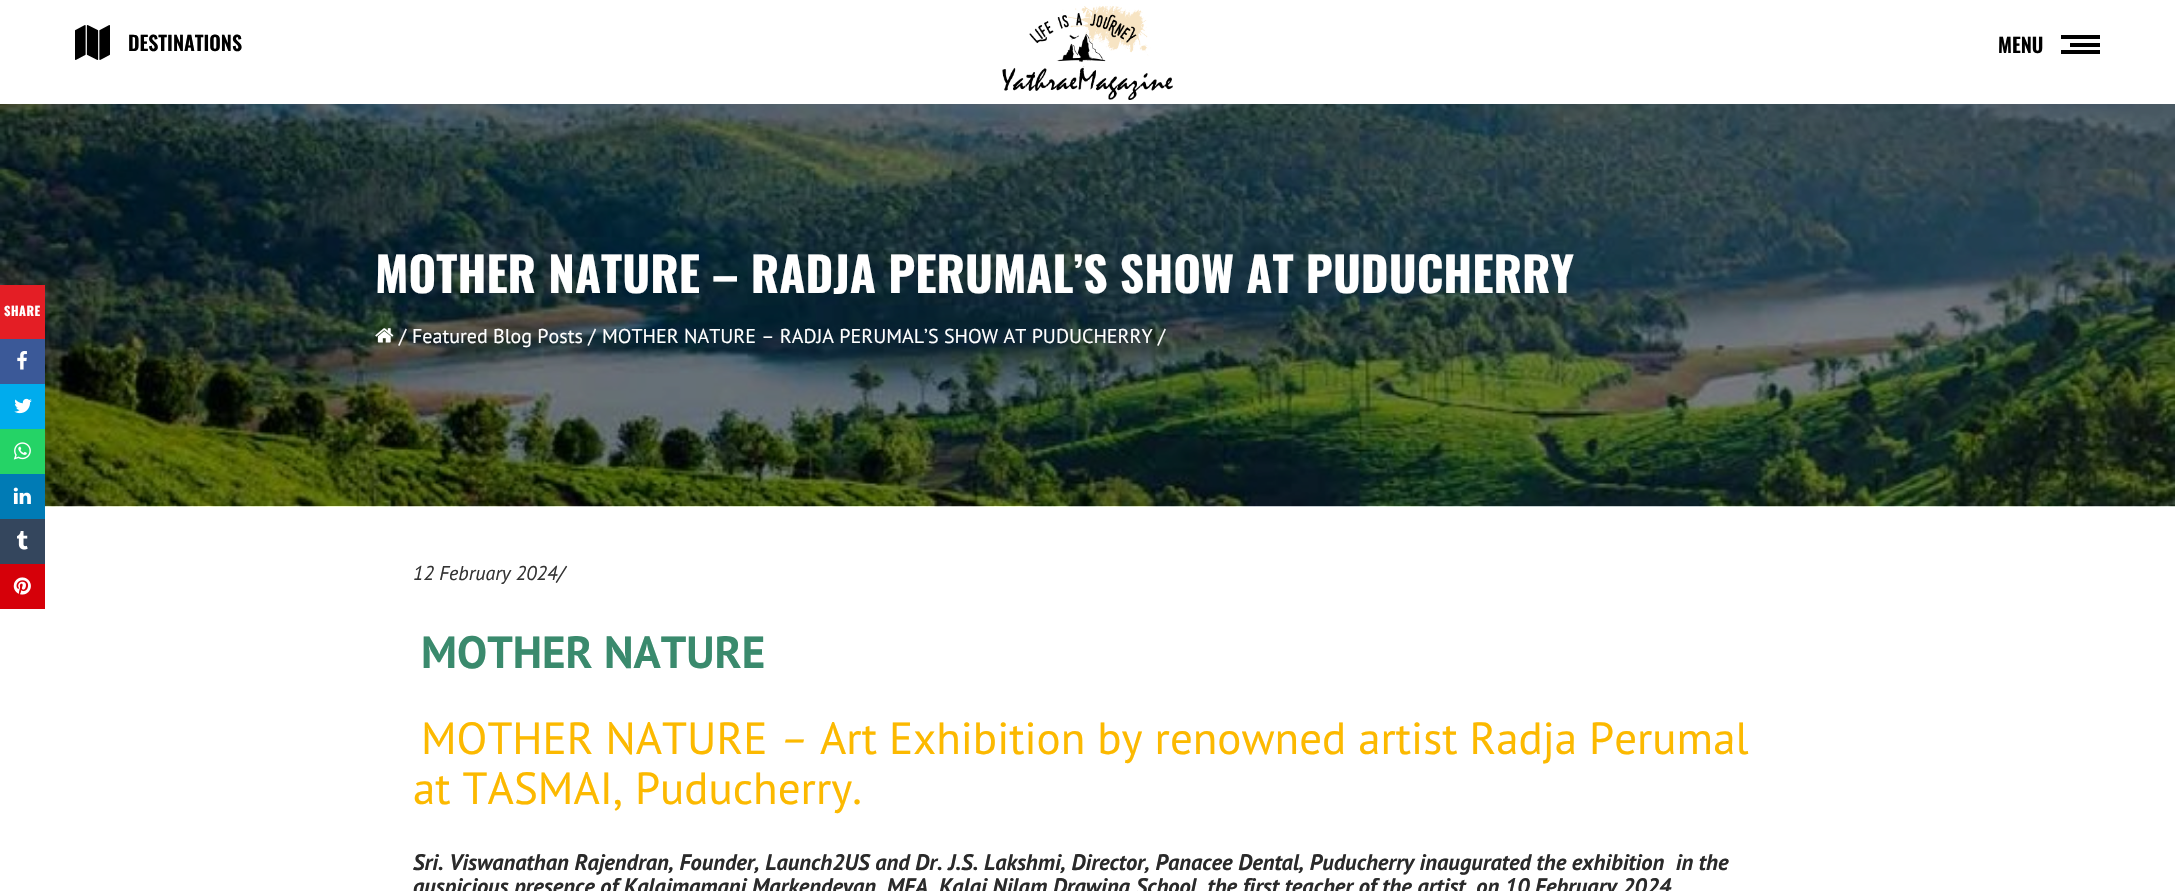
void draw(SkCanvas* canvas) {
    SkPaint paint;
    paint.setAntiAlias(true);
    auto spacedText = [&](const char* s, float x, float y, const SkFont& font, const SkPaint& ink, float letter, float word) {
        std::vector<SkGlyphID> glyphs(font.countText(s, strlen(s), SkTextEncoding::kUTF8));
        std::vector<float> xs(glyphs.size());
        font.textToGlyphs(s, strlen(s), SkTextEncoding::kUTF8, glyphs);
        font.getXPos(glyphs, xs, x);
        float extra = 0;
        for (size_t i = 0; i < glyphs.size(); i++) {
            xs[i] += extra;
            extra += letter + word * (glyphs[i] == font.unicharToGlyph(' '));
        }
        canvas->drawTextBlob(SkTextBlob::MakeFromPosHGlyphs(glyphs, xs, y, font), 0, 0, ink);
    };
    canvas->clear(0xFFFFFFFF);
    canvas->drawImageRect(SkImages::DeferredFromEncodedData(SkData::MakeFromFileName("img1.png")), SkRect::MakeXYWH(75, 25, 35, 35), SkSamplingOptions());
    SkFont font1(fontMgr->matchFamilyStyle("Oswald", SkFontStyle(600, SkFontStyle::kNormal_Width, SkFontStyle::kUpright_Slant)), 20);
    font1.setSubpixel(true);
    paint.setColor(0xFF000000);
    canvas->drawString("DESTINATIONS", 128, 51, font1, paint);
    canvas->drawImageRect(SkImages::DeferredFromEncodedData(SkData::MakeFromFileName("img2.png")), SkRect::MakeXYWH(1002, 6, 171, 94), SkSamplingOptions());
    canvas->drawString("MENU", 1998, 53, font1, paint);
    canvas->drawRect(SkRect::MakeXYWH(2061, 35, 39, 4), paint);
    canvas->drawRect(SkRect::MakeXYWH(2070, 43, 30, 4), paint);
    canvas->drawRect(SkRect::MakeXYWH(2061, 50, 39, 4), paint);
    canvas->drawImageRect(SkImages::DeferredFromEncodedData(SkData::MakeFromFileName("img9.png")), SkRect::MakeXYWH(0, 104, 2175, 403), SkSamplingOptions());
    paint.setColor(0xFFE41E25);
    canvas->drawRect(SkRect::MakeXYWH(0, 285, 45, 54), paint);
    SkFont font2(fontMgr->matchFamilyStyle("Oswald", SkFontStyle::Bold()), 12.5f);
    font2.setSubpixel(true);
    paint.setColor(0xFFFFFFFF);
    spacedText("SHARE", 4, 316, font2, paint, 0.5f, 0);
    paint.setColor(0xFF3B5998);
    canvas->drawRect(SkRect::MakeXYWH(0, 339, 45, 45), paint);
    canvas->drawImageRect(SkImages::DeferredFromEncodedData(SkData::MakeFromFileName("img3.png")), SkRect::MakeXYWH(17, 351, 10, 19), SkSamplingOptions());
    paint.setColor(0xFF00ACED);
    canvas->drawRect(SkRect::MakeXYWH(0, 384, 45, 45), paint);
    canvas->drawImageRect(SkImages::DeferredFromEncodedData(SkData::MakeFromFileName("img4.png")), SkRect::MakeXYWH(14, 398, 18, 16), SkSamplingOptions());
    paint.setColor(0xFF25D366);
    canvas->drawRect(SkRect::MakeXYWH(0, 429, 45, 45), paint);
    canvas->drawImageRect(SkImages::DeferredFromEncodedData(SkData::MakeFromFileName("img5.png")), SkRect::MakeXYWH(13, 442, 18, 18), SkSamplingOptions());
    paint.setColor(0xFF007BB5);
    canvas->drawRect(SkRect::MakeXYWH(0, 474, 45, 45), paint);
    canvas->drawImageRect(SkImages::DeferredFromEncodedData(SkData::MakeFromFileName("img6.png")), SkRect::MakeXYWH(13, 487, 18, 17), SkSamplingOptions());
    paint.setColor(0xFF34465D);
    canvas->drawRect(SkRect::MakeXYWH(0, 519, 45, 45), paint);
    canvas->drawImageRect(SkImages::DeferredFromEncodedData(SkData::MakeFromFileName("img7.png")), SkRect::MakeXYWH(17, 531, 11, 19), SkSamplingOptions());
    paint.setColor(0xFFD60009);
    canvas->drawRect(SkRect::MakeXYWH(0, 564, 45, 45), paint);
    canvas->drawImageRect(SkImages::DeferredFromEncodedData(SkData::MakeFromFileName("img8.png")), SkRect::MakeXYWH(13, 577, 18, 18), SkSamplingOptions());
    SkFont font3(fontMgr->matchFamilyStyle("Oswald", SkFontStyle::Bold()), 47.5f);
    font3.setSubpixel(true);
    paint.setColor(0xFFFFFFFF);
    canvas->drawString("MOTHER NATURE – RADJA PERUMAL’S SHOW AT PUDUCHERRY", 375, 293, font3, paint);
    canvas->drawImageRect(SkImages::DeferredFromEncodedData(SkData::MakeFromFileName("img10.png")), SkRect::MakeXYWH(375, 328, 19, 15), SkSamplingOptions());
    SkFont font4(fontMgr->matchFamilyStyle("PT Sans", SkFontStyle::Normal()), 20);
    font4.setSubpixel(true);
    canvas->drawString("/", 399, 343, font4, paint);
    canvas->drawString("Featured Blog Posts /", 412, 343, font4, paint);
    canvas->drawString("MOTHER NATURE – RADJA PERUMAL’S SHOW AT PUDUCHERRY /", 602, 343, font4, paint);
    SkFont font5(fontMgr->matchFamilyStyle("PT Sans", SkFontStyle::Italic()), 20);
    font5.setSubpixel(true);
    paint.setColor(0xFF333333);
    canvas->drawString("12 February 2024/", 413, 580, font5, paint);
    SkFont font6(fontMgr->matchFamilyStyle("PT Sans", SkFontStyle::Bold()), 45);
    font6.setSubpixel(true);
    paint.setColor(0xFF3A8A6D);
    canvas->drawString("MOTHER NATURE", 421, 668, font6, paint);
    SkFont font7(fontMgr->matchFamilyStyle("PT Sans", SkFontStyle::Normal()), 45);
    font7.setSubpixel(true);
    paint.setColor(0xFFFCB900);
    canvas->drawString("MOTHER NATURE", 421, 754, font7, paint);
    SkFont font8(fontMgr->matchFamilyStyle("PT Sans", SkFontStyle::Italic()), 45);
    font8.setSubpixel(true);
    canvas->drawString("–", 780, 754, font8, paint);
    canvas->drawString("Art Exhibition by renowned artist Radja Perumal", 820, 754, font7, paint);
    canvas->drawString("at TASMAI, Puducherry.", 413, 804, font7, paint);
    SkFont font9(fontMgr->matchFamilyStyle("PT Sans", SkFontStyle::BoldItalic()), 22.5f);
    font9.setSubpixel(true);
    paint.setColor(0xFF2A2A2A);
    canvas->drawString("Sri. Viswanathan Rajendran, Founder, Launch2US and Dr. J.S. Lakshmi, Director, Panacee Dental, Puducherry inaugurated the exhibition  in the", 413, 870, font9, paint);
    canvas->drawString("auspicious presence of Kalaimamani Markendeyan, MFA, Kalai Nilam Drawing School, the first teacher of the artist, on 10 February 2024", 413, 894, font9, paint);
}
